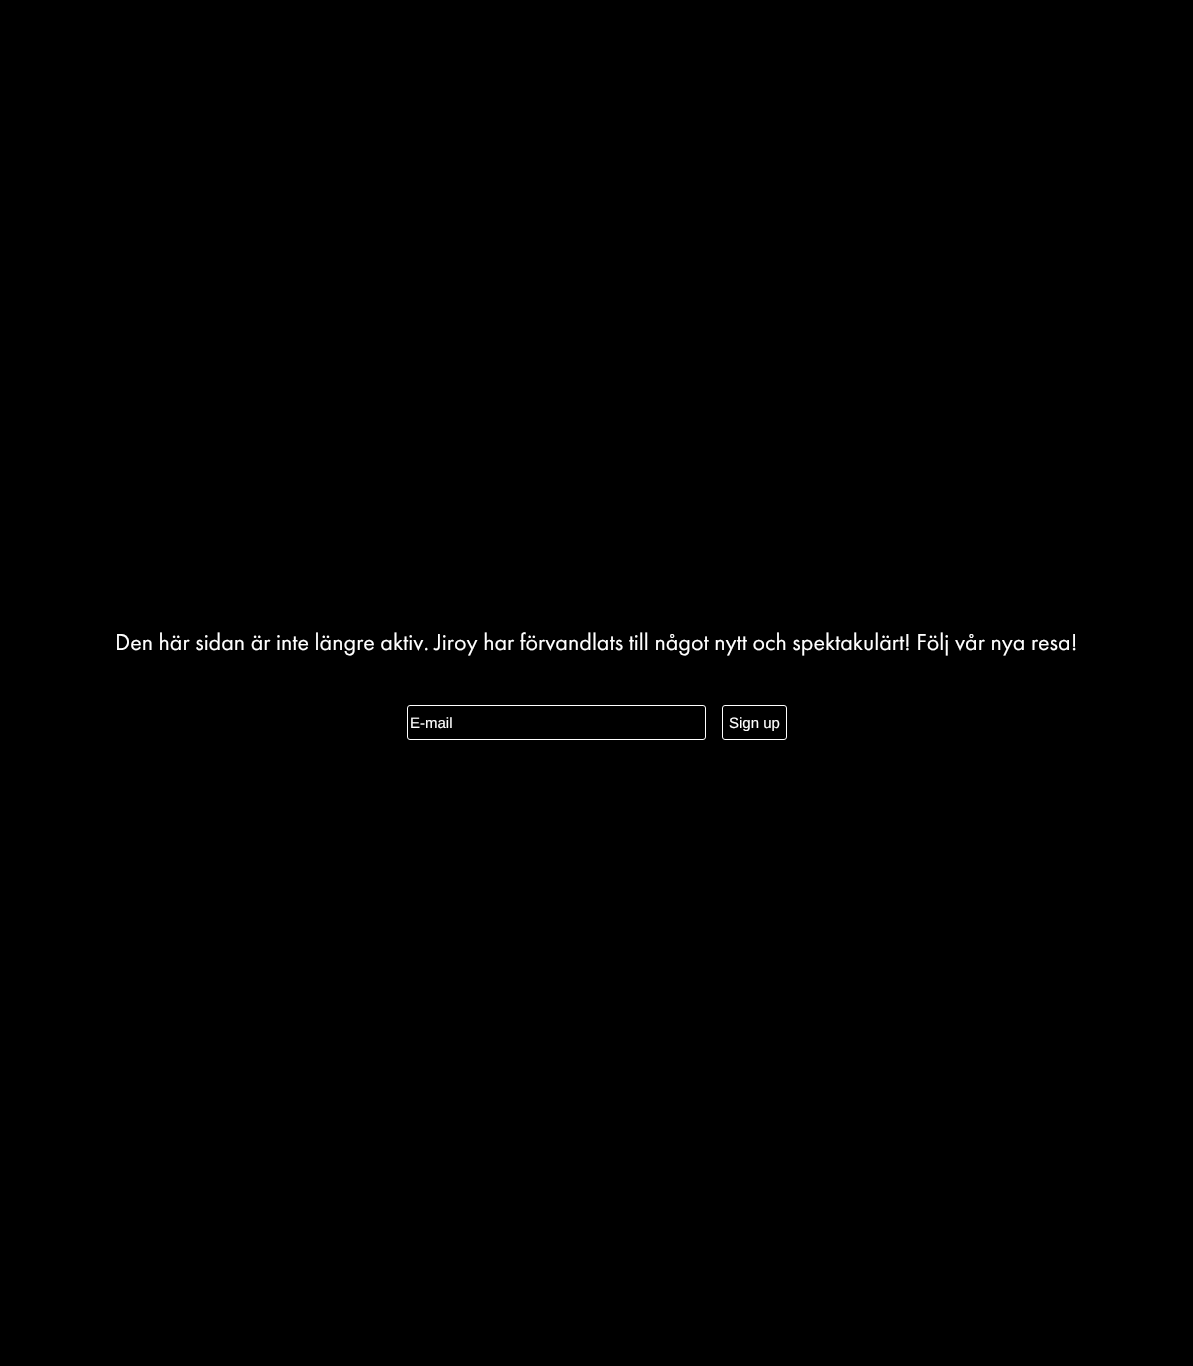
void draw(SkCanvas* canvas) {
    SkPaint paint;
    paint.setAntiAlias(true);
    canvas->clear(0xFF000000);
    SkFont font1(fontMgr->matchFamilyStyle("Futura PT", SkFontStyle::Normal()), 24);
    font1.setSubpixel(true);
    paint.setColor(0xFFFFFFFF);
    canvas->drawString("Den här sidan är inte längre aktiv. Jiroy har förvandlats till något nytt och spektakulärt! Följ vår nya resa!", 115, 650, font1, paint);
    paint.setStyle(SkPaint::kStroke_Style);
    paint.setStrokeWidth(1);
    canvas->drawRoundRect(SkRect::MakeXYWH(407.5f, 705.5f, 298, 34), 2.5f, 2.5f, paint);
    SkFont font2(fontMgr->matchFamilyStyle("Liberation Sans", SkFontStyle::Normal()), 15);
    font2.setSubpixel(true);
    paint.setStyle(SkPaint::kFill_Style);
    canvas->drawString("E-mail", 410, 728, font2, paint);
    paint.setStyle(SkPaint::kStroke_Style);
    canvas->drawRoundRect(SkRect::MakeXYWH(722.5f, 705.5f, 64, 34), 2.5f, 2.5f, paint);
    paint.setStyle(SkPaint::kFill_Style);
    canvas->drawString("Sign up", 729, 728, font2, paint);
}
